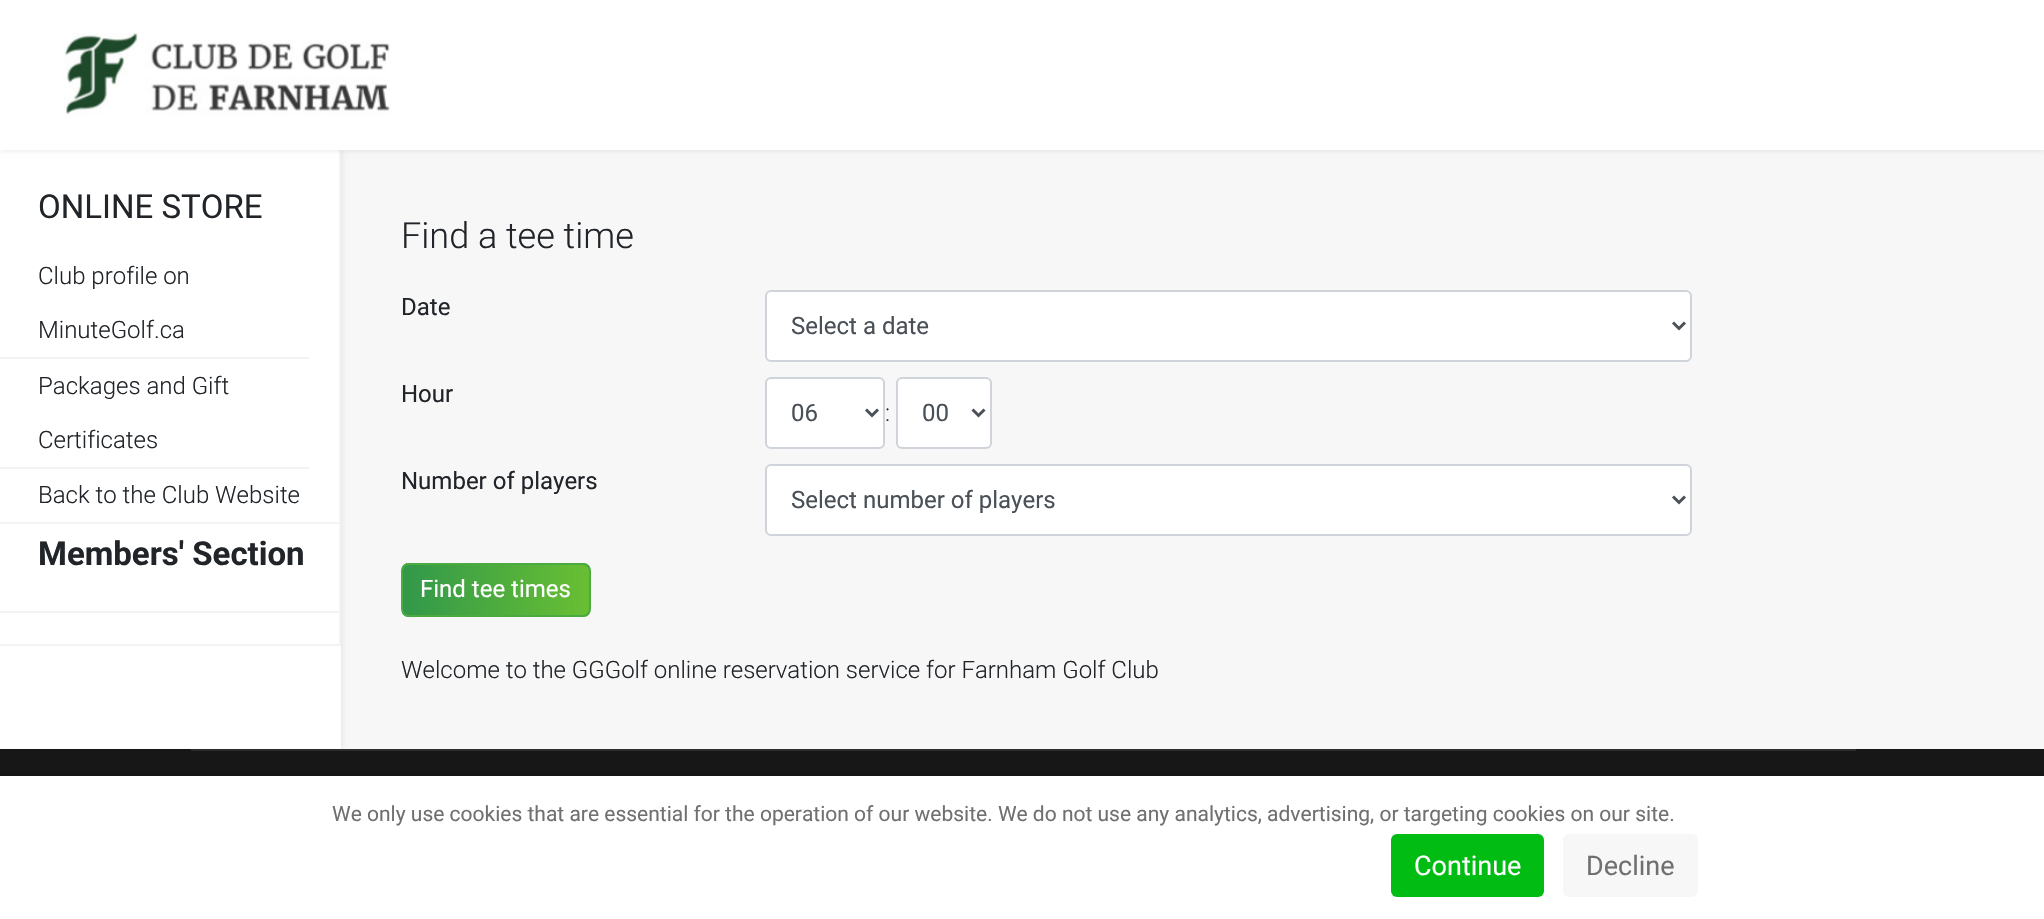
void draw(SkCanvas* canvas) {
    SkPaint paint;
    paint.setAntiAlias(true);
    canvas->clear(0xFFF7F7F7);
    paint.setColor(0xFF171717);
    canvas->drawRect(SkRect::MakeXYWH(0, 749, 2044, 27), paint);
    paint.setColor(0xFF2E2E2E);
    canvas->drawRect(SkRect::MakeXYWH(191, 749, 1665, 2), paint);
    paint.setColor(0x1A000000);
    paint.setMaskFilter(SkMaskFilter::MakeBlur(kNormal_SkBlurStyle, 3));
    canvas->drawRect(SkRect::MakeXYWH(0, 150, 341, 599), paint);
    paint.setMaskFilter(nullptr);
    paint.setColor(0xFFFFFFFF);
    canvas->drawRect(SkRect::MakeXYWH(0, 150, 341, 599), paint);
    paint.setColor(0xFFF3F3F3);
    canvas->drawRect(SkRect::MakeXYWH(339, 150, 2, 495), paint);
    paint.setColor(0x1A000000);
    paint.setMaskFilter(SkMaskFilter::MakeBlur(kNormal_SkBlurStyle, 3));
    canvas->drawRect(SkRect::MakeXYWH(0, 0, 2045, 150), paint);
    paint.setMaskFilter(nullptr);
    paint.setColor(0xFFFFFFFF);
    canvas->drawRect(SkRect::MakeXYWH(0, 0, 2044, 150), paint);
    canvas->drawImageRect(SkImages::DeferredFromEncodedData(SkData::MakeFromFileName("img1.png")), SkRect::MakeXYWH(63, 33, 327, 82), SkSamplingOptions());
    paint.setColor(0xFFF3F3F3);
    canvas->drawRect(SkRect::MakeXYWH(0, 522, 341, 2), paint);
    SkFont font1(fontMgr->matchFamilyStyle("Roboto", SkFontStyle::Normal()), 33);
    font1.setSubpixel(true);
    paint.setColor(0xFF212529);
    canvas->drawString("ONLINE STORE", 38, 218, font1, paint);
    paint.setColor(0xFFF3F3F3);
    canvas->drawRect(SkRect::MakeXYWH(0, 357, 309, 2), paint);
    SkFont font2(fontMgr->matchFamilyStyle("Roboto", SkFontStyle(300, SkFontStyle::kNormal_Width, SkFontStyle::kUpright_Slant)), 24);
    font2.setSubpixel(true);
    paint.setColor(0xFF212529);
    canvas->drawString("Club profile on", 38, 284, font2, paint);
    canvas->drawString("MinuteGolf.ca", 38, 338, font2, paint);
    paint.setColor(0xFFF3F3F3);
    canvas->drawRect(SkRect::MakeXYWH(0, 467, 309, 2), paint);
    paint.setColor(0xFF212529);
    canvas->drawString("Packages and Gift", 38, 394, font2, paint);
    canvas->drawString("Certificates", 38, 448, font2, paint);
    canvas->drawString("Back to the Club Website", 38, 503, font2, paint);
    paint.setColor(0xFFF3F3F3);
    canvas->drawRect(SkRect::MakeXYWH(0, 644, 341, 2), paint);
    canvas->drawRect(SkRect::MakeXYWH(0, 611, 339, 2), paint);
    SkFont font3(fontMgr->matchFamilyStyle("Roboto", SkFontStyle::Bold()), 33);
    font3.setSubpixel(true);
    paint.setColor(0xFF212529);
    canvas->drawString("Members' Section", 38, 565, font3, paint);
    SkFont font4(fontMgr->matchFamilyStyle("Roboto", SkFontStyle(300, SkFontStyle::kNormal_Width, SkFontStyle::kUpright_Slant)), 36);
    font4.setSubpixel(true);
    canvas->drawString("Find a tee time", 401, 248, font4, paint);
    SkFont font5(fontMgr->matchFamilyStyle("Roboto", SkFontStyle::Normal()), 24);
    font5.setSubpixel(true);
    canvas->drawString("Date", 401, 315, font5, paint);
    paint.setColor(0xFFFFFFFF);
    canvas->drawRoundRect(SkRect::MakeXYWH(766, 291, 925, 70), 5, 5, paint);
    paint.setStyle(SkPaint::kStroke_Style);
    paint.setStrokeWidth(2);
    paint.setColor(0xFFCED4DA);
    canvas->drawRoundRect(SkRect::MakeXYWH(766, 291, 925, 70), 5, 5, paint);
    paint.setStrokeWidth(3);
    paint.setColor(0xFF495057);
    canvas->drawPath(SkPathBuilder().moveTo(1673, 322.5f).lineTo(1679, 328.5f).lineTo(1685, 322.5f).detach(), paint);
    paint.setStyle(SkPaint::kFill_Style);
    canvas->drawString("Select a date", 791, 334, font5, paint);
    paint.setColor(0xFF212529);
    canvas->drawString("Hour", 401, 402, font5, paint);
    paint.setColor(0xFFFFFFFF);
    canvas->drawRoundRect(SkRect::MakeXYWH(766, 378, 118, 70), 5, 5, paint);
    paint.setStyle(SkPaint::kStroke_Style);
    paint.setStrokeWidth(2);
    paint.setColor(0xFFCED4DA);
    canvas->drawRoundRect(SkRect::MakeXYWH(766, 378, 118, 70), 5, 5, paint);
    paint.setStrokeWidth(3);
    paint.setColor(0xFF495057);
    canvas->drawPath(SkPathBuilder().moveTo(866, 409.5f).lineTo(872, 415.5f).lineTo(878, 409.5f).detach(), paint);
    paint.setStyle(SkPaint::kFill_Style);
    canvas->drawString("06", 791, 421, font5, paint);
    paint.setColor(0xFF212529);
    canvas->drawString(":", 885, 421, font2, paint);
    paint.setColor(0xFFFFFFFF);
    canvas->drawRoundRect(SkRect::MakeXYWH(897, 378, 94, 70), 5, 5, paint);
    paint.setStyle(SkPaint::kStroke_Style);
    paint.setStrokeWidth(2);
    paint.setColor(0xFFCED4DA);
    canvas->drawRoundRect(SkRect::MakeXYWH(897, 378, 94, 70), 5, 5, paint);
    paint.setStrokeWidth(3);
    paint.setColor(0xFF495057);
    canvas->drawPath(SkPathBuilder().moveTo(972.5f, 409.5f).lineTo(978.5f, 415.5f).lineTo(984.5f, 409.5f).detach(), paint);
    paint.setStyle(SkPaint::kFill_Style);
    canvas->drawString("00", 922, 421, font5, paint);
    paint.setColor(0xFF212529);
    canvas->drawString("Number of players", 401, 489, font5, paint);
    paint.setColor(0xFFFFFFFF);
    canvas->drawRoundRect(SkRect::MakeXYWH(766, 465, 925, 70), 5, 5, paint);
    paint.setStyle(SkPaint::kStroke_Style);
    paint.setStrokeWidth(2);
    paint.setColor(0xFFCED4DA);
    canvas->drawRoundRect(SkRect::MakeXYWH(766, 465, 925, 70), 5, 5, paint);
    paint.setStrokeWidth(3);
    paint.setColor(0xFF495057);
    canvas->drawPath(SkPathBuilder().moveTo(1673, 496.5f).lineTo(1679, 502.5f).lineTo(1685, 496.5f).detach(), paint);
    paint.setStyle(SkPaint::kFill_Style);
    canvas->drawString("Select number of players", 791, 508, font5, paint);
    canvas->save();
    canvas->clipPath(SkPathBuilder().moveTo(409, 563).lineTo(583, 563).cubicTo(587.5f, 563, 591, 566.5f, 591, 571).lineTo(591, 609).cubicTo(591, 613.5f, 587.5f, 617, 583, 617).lineTo(409, 617).cubicTo(404.5f, 617, 401, 613.5f, 401, 609).lineTo(401, 571).cubicTo(401, 566.5f, 404.5f, 563, 409, 563).close().detach(), true);
    {
        const SkColor colors[] = {0xFF31984A, 0xFF69BF33};
        const float stops[] = {0, 1};
        const SkPoint ends[] = {{402, 590}, {590, 590}};
        paint.setShader(SkGradientShader::MakeLinear(ends, colors, stops, 2, SkTileMode::kClamp));
        paint.setAlpha(255);
    }
    canvas->drawRect(SkRect::MakeXYWH(402, 563, 188, 54), paint);
    canvas->restore();
    paint.setStyle(SkPaint::kStroke_Style);
    paint.setStrokeWidth(2);
    paint.setShader(nullptr);
    paint.setColor(0xFF4BAA40);
    canvas->drawRoundRect(SkRect::MakeXYWH(402, 564, 188, 52), 7, 7, paint);
    paint.setStyle(SkPaint::kFill_Style);
    paint.setColor(0xFFFFFFFF);
    canvas->drawString("Find tee times", 420, 597, font5, paint);
    paint.setColor(0xFF212529);
    canvas->drawString("Welcome to the GGGolf online reservation service for Farnham Golf Club", 401, 678, font2, paint);
    paint.setColor(0x40000000);
    paint.setMaskFilter(SkMaskFilter::MakeBlur(kNormal_SkBlurStyle, 4));
    canvas->drawRect(SkRect::MakeXYWH(0, 776, 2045, 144), paint);
    paint.setMaskFilter(nullptr);
    paint.setColor(0xFFFFFFFF);
    canvas->drawRect(SkRect::MakeXYWH(0, 776, 2044, 143), paint);
    SkFont font6(fontMgr->matchFamilyStyle("Roboto", SkFontStyle::Normal()), 21);
    font6.setSubpixel(true);
    paint.setColor(0xFF707070);
    canvas->drawString("We only use cookies that are essential for the operation of our website. We do not use any analytics, advertising, or targeting cookies on our site.", 332, 821, font6, paint);
    paint.setColor(0xFF00BC13);
    canvas->drawRoundRect(SkRect::MakeXYWH(1391, 834, 153, 63), 6, 6, paint);
    SkFont font7(fontMgr->matchFamilyStyle("Roboto", SkFontStyle::Normal()), 27);
    font7.setSubpixel(true);
    paint.setColor(0xFFFFFFFF);
    canvas->drawString("Continue", 1414, 875, font7, paint);
    paint.setColor(0xFFF7F7F7);
    canvas->drawRoundRect(SkRect::MakeXYWH(1563, 834, 135, 63), 6, 6, paint);
    paint.setColor(0xFF707070);
    canvas->drawString("Decline", 1586, 875, font7, paint);
}
